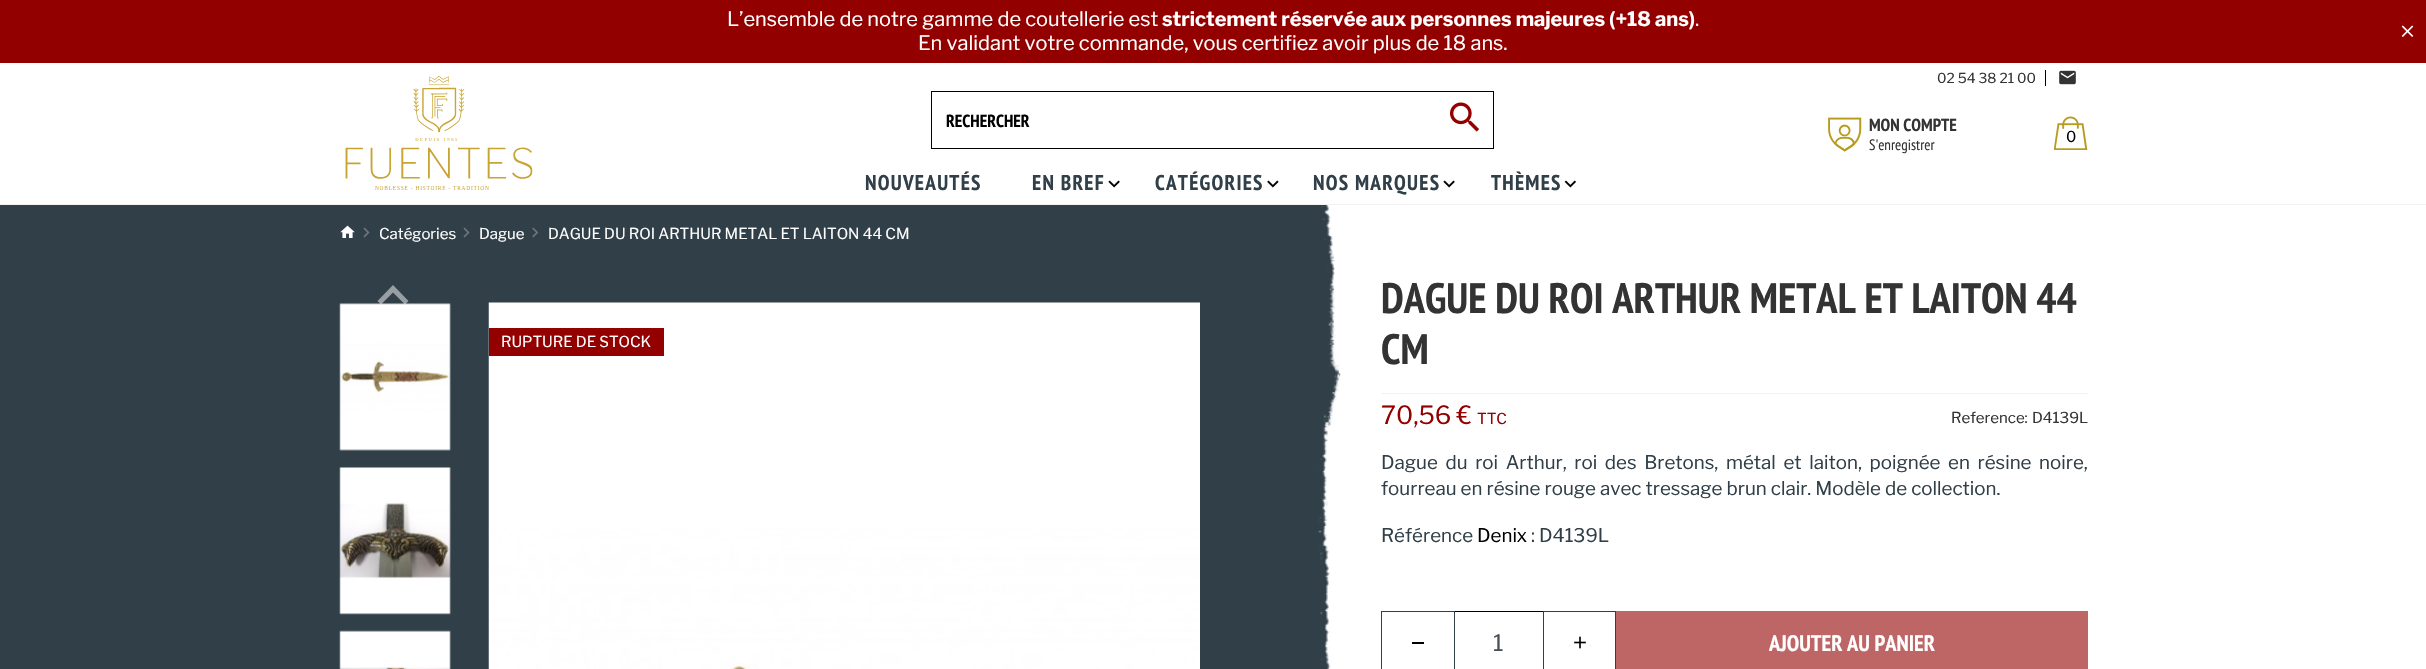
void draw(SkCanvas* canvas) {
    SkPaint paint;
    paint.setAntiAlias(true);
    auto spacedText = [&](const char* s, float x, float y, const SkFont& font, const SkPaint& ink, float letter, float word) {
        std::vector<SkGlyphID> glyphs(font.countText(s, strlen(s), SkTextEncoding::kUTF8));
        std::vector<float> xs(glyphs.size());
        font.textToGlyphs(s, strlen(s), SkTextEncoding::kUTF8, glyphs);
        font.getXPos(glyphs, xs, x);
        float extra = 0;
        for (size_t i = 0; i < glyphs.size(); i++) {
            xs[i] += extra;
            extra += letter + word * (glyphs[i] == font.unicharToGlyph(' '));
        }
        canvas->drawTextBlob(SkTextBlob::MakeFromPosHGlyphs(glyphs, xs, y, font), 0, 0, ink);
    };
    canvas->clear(0xFFFFFFFF);
    paint.setColor(0xFF920000);
    canvas->drawRect(SkRect::MakeXYWH(0, 0, 2426, 63), paint);
    SkFont font1(fontMgr->matchFamilyStyle("Libre Franklin", SkFontStyle::Normal()), 20);
    font1.setSubpixel(true);
    paint.setColor(0xFFFFFFFF);
    canvas->drawString("L’ensemble de notre gamme de coutellerie est", 727, 26, font1, paint);
    SkFont font2(fontMgr->matchFamilyStyle("Libre Franklin", SkFontStyle::Bold()), 20);
    font2.setSubpixel(true);
    canvas->drawString("strictement réservée aux personnes majeures (+18 ans)", 1162, 26, font2, paint);
    canvas->drawString(".", 1695, 26, font1, paint);
    canvas->drawString("En validant votre commande, vous certifiez avoir plus de 18 ans.", 918, 50, font1, paint);
    canvas->drawImageRect(SkImages::DeferredFromEncodedData(SkData::MakeFromFileName("img1.png")), SkRect::MakeXYWH(2401, 25, 13, 12), SkSamplingOptions());
    paint.setColor(0xFFF5F1F0);
    canvas->drawRect(SkRect::MakeXYWH(0, 204, 2426, 1), paint);
    canvas->drawImageRect(SkImages::DeferredFromEncodedData(SkData::MakeFromFileName("img2.png")), SkRect::MakeXYWH(345, 75, 188, 115), SkSamplingOptions());
    paint.setStyle(SkPaint::kStroke_Style);
    paint.setStrokeWidth(1);
    paint.setColor(0xFF000000);
    canvas->drawRect(SkRect::MakeXYWH(931.5f, 91.5f, 562, 57), paint);
    SkFont font3(fontMgr->matchFamilyStyle("PT Sans Narrow", SkFontStyle::Bold()), 17.5f);
    font3.setSubpixel(true);
    paint.setStyle(SkPaint::kFill_Style);
    canvas->drawString("RECHERCHER", 946, 127, font3, paint);
    canvas->drawImageRect(SkImages::DeferredFromEncodedData(SkData::MakeFromFileName("img3.png")), SkRect::MakeXYWH(1450, 102, 29, 30), SkSamplingOptions());
    SkFont font4(fontMgr->matchFamilyStyle("PT Sans Narrow", SkFontStyle::Bold()), 21.25f);
    font4.setSubpixel(true);
    paint.setColor(0xFF313F48);
    spacedText("NOUVEAUTÉS", 865, 190, font4, paint, 1.25f, 0);
    spacedText("EN BREF", 1032, 190, font4, paint, 1.25f, 0);
    canvas->drawImageRect(SkImages::DeferredFromEncodedData(SkData::MakeFromFileName("img4.png")), SkRect::MakeXYWH(1108, 180, 12, 8), SkSamplingOptions());
    spacedText("CATÉGORIES", 1155, 190, font4, paint, 1.25f, 0);
    canvas->drawImageRect(SkImages::DeferredFromEncodedData(SkData::MakeFromFileName("img5.png")), SkRect::MakeXYWH(1267, 180, 12, 8), SkSamplingOptions());
    spacedText("NOS MARQUES", 1313, 190, font4, paint, 1.25f, 0);
    canvas->drawImageRect(SkImages::DeferredFromEncodedData(SkData::MakeFromFileName("img4.png")), SkRect::MakeXYWH(1443, 180, 12, 8), SkSamplingOptions());
    spacedText("THÈMES", 1491, 190, font4, paint, 1.25f, 0);
    canvas->drawImageRect(SkImages::DeferredFromEncodedData(SkData::MakeFromFileName("img6.png")), SkRect::MakeXYWH(1564, 180, 12, 8), SkSamplingOptions());
    SkFont font5(fontMgr->matchFamilyStyle("Libre Franklin", SkFontStyle::Normal()), 13.75f);
    font5.setSubpixel(true);
    paint.setColor(0xFF333333);
    canvas->drawString("02 54 38 21 00", 1937, 83, font5, paint);
    paint.setColor(0xFF000000);
    canvas->drawRect(SkRect::MakeXYWH(2045, 70, 1, 16), paint);
    canvas->drawImageRect(SkImages::DeferredFromEncodedData(SkData::MakeFromFileName("img7.png")), SkRect::MakeXYWH(2059, 70, 17, 15), SkSamplingOptions());
    canvas->drawImageRect(SkImages::DeferredFromEncodedData(SkData::MakeFromFileName("img8.png")), SkRect::MakeXYWH(1828, 117, 34, 35), SkSamplingOptions());
    paint.setColor(0xFF333333);
    canvas->drawString("MON COMPTE", 1869, 131, font3, paint);
    SkFont font6(fontMgr->matchFamilyStyle("PT Sans Narrow", SkFontStyle::Normal()), 15);
    font6.setSubpixel(true);
    canvas->drawString("S'enregistrer", 1869, 150, font6, paint);
    canvas->drawImageRect(SkImages::DeferredFromEncodedData(SkData::MakeFromFileName("img9.png")), SkRect::MakeXYWH(2054, 116, 34, 34), SkSamplingOptions());
    SkFont font7(fontMgr->matchFamilyStyle("Libre Franklin", SkFontStyle::Normal()), 15);
    font7.setSubpixel(true);
    paint.setColor(0xFF000000);
    canvas->drawString("0", 2066, 142, font7, paint);
    paint.setColor(0xFF313F48);
    canvas->drawRect(SkRect::MakeXYWH(0, 205, 1300, 464), paint);
    canvas->drawImageRect(SkImages::DeferredFromEncodedData(SkData::MakeFromFileName("img10.png")), SkRect::MakeXYWH(340, 225, 15, 13), SkSamplingOptions());
    canvas->drawImageRect(SkImages::DeferredFromEncodedData(SkData::MakeFromFileName("img11.png")), SkRect::MakeXYWH(363, 227, 7, 11), SkSamplingOptions());
    paint.setColor(0xFFFFFFFF);
    canvas->drawString("Catégories", 379, 239, font7, paint);
    canvas->drawImageRect(SkImages::DeferredFromEncodedData(SkData::MakeFromFileName("img11.png")), SkRect::MakeXYWH(463, 227, 7, 11), SkSamplingOptions());
    canvas->drawString("Dague", 479, 239, font7, paint);
    canvas->drawImageRect(SkImages::DeferredFromEncodedData(SkData::MakeFromFileName("img12.png")), SkRect::MakeXYWH(532, 227, 7, 11), SkSamplingOptions());
    canvas->drawString("DAGUE DU ROI ARTHUR METAL ET LAITON 44 CM", 548, 239, font7, paint);
    canvas->drawImageRect(SkImages::DeferredFromEncodedData(SkData::MakeFromFileName("img13.png")), SkRect::MakeXYWH(339, 303, 112, 148), SkSamplingOptions());
    paint.setColor(0x80FFFFFF);
    canvas->drawPath(SkPathBuilder().moveTo(381, 304.5f).lineTo(393, 292.5f).lineTo(405, 304.5f).lineTo(408.5f, 301).lineTo(393, 285).lineTo(377.5f, 301).close().detach(), paint);
    canvas->drawImageRect(SkImages::DeferredFromEncodedData(SkData::MakeFromFileName("img14.png")), SkRect::MakeXYWH(339, 467, 112, 148), SkSamplingOptions());
    canvas->drawImageRect(SkImages::DeferredFromEncodedData(SkData::MakeFromFileName("img15.png")), SkRect::MakeXYWH(339, 630, 112, 39), SkSamplingOptions());
    canvas->drawImageRect(SkImages::DeferredFromEncodedData(SkData::MakeFromFileName("img16.png")), SkRect::MakeXYWH(488, 302, 712, 367), SkSamplingOptions());
    paint.setColor(0xFF920000);
    canvas->drawRect(SkRect::MakeXYWH(489, 328, 175, 28), paint);
    paint.setColor(0xFFFFFFFF);
    canvas->drawString("RUPTURE DE STOCK", 501, 347, font7, paint);
    canvas->drawImageRect(SkImages::DeferredFromEncodedData(SkData::MakeFromFileName("img17.png")), SkRect::MakeXYWH(1300, 205, 41, 464), SkSamplingOptions());
    paint.setColor(0xFFF5F1F0);
    canvas->drawRect(SkRect::MakeXYWH(1381, 393, 707, 1), paint);
    SkFont font8(fontMgr->matchFamilyStyle("PT Sans Narrow", SkFontStyle::Bold()), 42.5f);
    font8.setSubpixel(true);
    paint.setColor(0xFF333333);
    canvas->drawString("DAGUE DU ROI ARTHUR METAL ET LAITON 44", 1381, 313, font8, paint);
    canvas->drawString("CM", 1381, 364, font8, paint);
    SkFont font9(fontMgr->matchFamilyStyle("Libre Franklin", SkFontStyle::Normal()), 25);
    font9.setSubpixel(true);
    paint.setColor(0xFF920000);
    canvas->drawString("70,56 €", 1381, 424, font9, paint);
    canvas->drawString("TTC", 1477, 424, font7, paint);
    paint.setColor(0xFF333333);
    canvas->drawString("Reference:", 1951, 423, font7, paint);
    canvas->drawString("D4139L", 2032, 423, font7, paint);
    SkFont font10(fontMgr->matchFamilyStyle("Libre Franklin", SkFontStyle::Normal()), 18.75f);
    font10.setSubpixel(true);
    paint.setColor(0xFF313F48);
    spacedText("Dague du roi Arthur, roi des Bretons, métal et laiton, poignée en résine noire,", 1381, 469, font10, paint, 0, 3.6f);
    canvas->drawString("fourreau en résine rouge avec tressage brun clair. Modèle de collection.", 1381, 495, font10, paint);
    canvas->drawString("Référence", 1381, 542, font10, paint);
    paint.setColor(0xFF000000);
    canvas->drawString("Denix", 1477, 542, font10, paint);
    paint.setColor(0xFF313F48);
    canvas->drawString(": D4139L", 1531, 542, font10, paint);
    paint.setStyle(SkPaint::kStroke_Style);
    canvas->drawRect(SkRect::MakeXYWH(1381.5f, 611.5f, 73, 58), paint);
    paint.setStyle(SkPaint::kFill_Style);
    paint.setColor(0xFF000000);
    canvas->drawRect(SkRect::MakeXYWH(1412, 642, 12, 2), paint);
    canvas->drawRect(SkRect::MakeXYWH(1455, 611, 88, 1), paint);
    SkFont font11(fontMgr->matchFamilyStyle("Libre Franklin", SkFontStyle::Normal()), 22.5f);
    font11.setSubpixel(true);
    paint.setColor(0xFF495057);
    canvas->drawString("1", 1493, 651, font11, paint);
    paint.setStyle(SkPaint::kStroke_Style);
    paint.setColor(0xFF313F48);
    canvas->drawRect(SkRect::MakeXYWH(1543.5f, 611.5f, 72, 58), paint);
    canvas->drawImageRect(SkImages::DeferredFromEncodedData(SkData::MakeFromFileName("img18.png")), SkRect::MakeXYWH(1574, 636, 12, 13), SkSamplingOptions());
    paint.setStyle(SkPaint::kFill_Style);
    paint.setColor(0xFFBE6666);
    canvas->drawRect(SkRect::MakeXYWH(1616, 611, 472, 58), paint);
    SkFont font12(fontMgr->matchFamilyStyle("PT Sans Narrow", SkFontStyle::Bold()), 22.5f);
    font12.setSubpixel(true);
    paint.setColor(0xFFFFFFFF);
    canvas->drawString("AJOUTER AU PANIER", 1769, 651, font12, paint);
}
